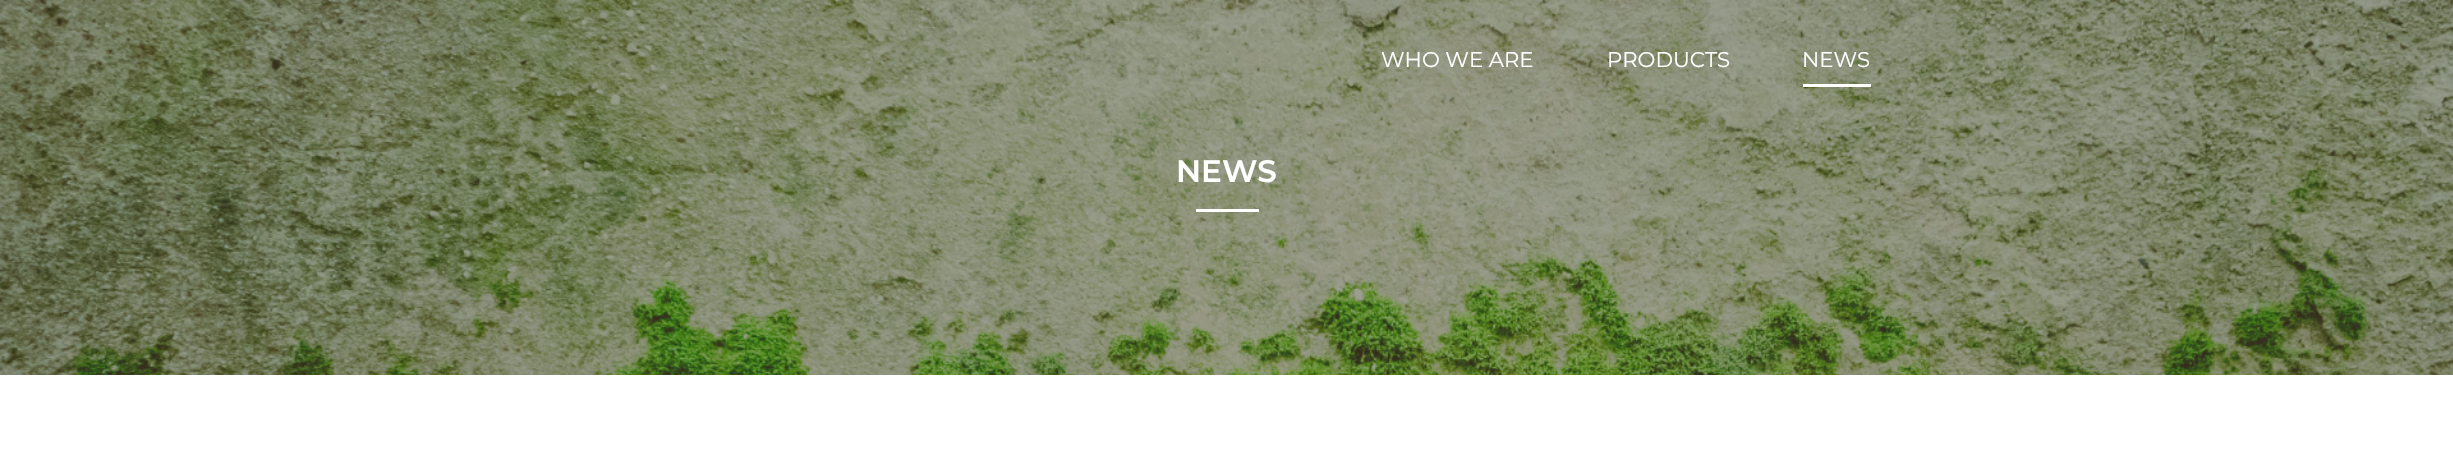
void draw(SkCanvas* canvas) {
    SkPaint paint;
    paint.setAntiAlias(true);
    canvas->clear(0xFFFFFFFF);
    canvas->drawImageRect(SkImages::DeferredFromEncodedData(SkData::MakeFromFileName("img1.png")), SkRect::MakeXYWH(0, 0, 2453, 375), SkSamplingOptions());
    SkFont font1(fontMgr->matchFamilyStyle("Montserrat", SkFontStyle::Normal()), 21.25f);
    font1.setSubpixel(true);
    paint.setColor(0xFFFFFFFF);
    canvas->drawString("WHO WE ARE", 1381, 67, font1, paint);
    canvas->drawString("PRODUCTS", 1607, 67, font1, paint);
    canvas->drawString("NEWS", 1802, 67, font1, paint);
    canvas->drawRect(SkRect::MakeXYWH(1803, 84, 68, 3), paint);
    SkFont font2(fontMgr->matchFamilyStyle("Montserrat", SkFontStyle(600, SkFontStyle::kNormal_Width, SkFontStyle::kUpright_Slant)), 31);
    font2.setSubpixel(true);
    canvas->drawString("NEWS", 1176, 182, font2, paint);
    canvas->drawRect(SkRect::MakeXYWH(1196, 209, 63, 3), paint);
}
